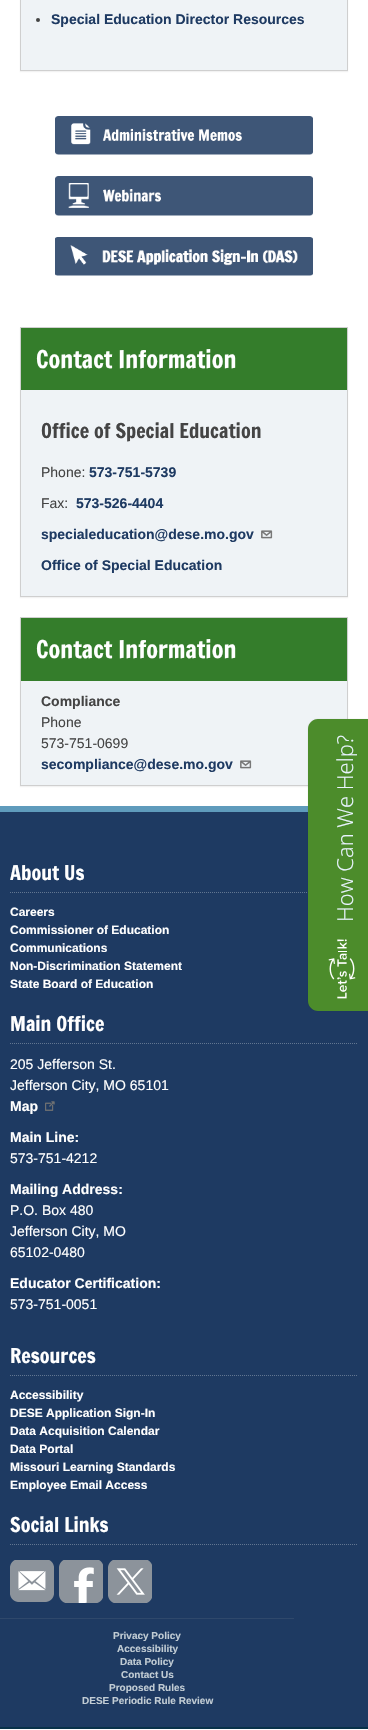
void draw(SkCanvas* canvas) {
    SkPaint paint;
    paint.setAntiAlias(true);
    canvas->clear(0xFFFFFFFF);
    paint.setColor(0x0D000000);
    paint.setMaskFilter(SkMaskFilter::MakeBlur(kNormal_SkBlurStyle, 0.5f));
    canvas->drawRect(SkRect::MakeXYWH(20, -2, 328, 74), paint);
    paint.setMaskFilter(nullptr);
    paint.setColor(0xFFEFF3F6);
    canvas->drawRect(SkRect::MakeXYWH(20.5f, -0.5f, 327, 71), paint);
    paint.setStyle(SkPaint::kStroke_Style);
    paint.setStrokeWidth(1);
    paint.setColor(0xFFCFCFCF);
    canvas->drawRect(SkRect::MakeXYWH(20.5f, -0.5f, 327, 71), paint);
    paint.setStyle(SkPaint::kFill_Style);
    paint.setColor(0xFF444444);
    canvas->drawCircle(38, 20, 2, paint);
    SkFont font1(fontMgr->matchFamilyStyle("Liberation Sans", SkFontStyle::Bold()), 14);
    font1.setSubpixel(true);
    paint.setColor(0xFF1E3A62);
    canvas->drawString("Special Education Director Resources", 51, 24, font1, paint);
    canvas->drawImageRect(SkImages::DeferredFromEncodedData(SkData::MakeFromFileName("img1.png")), SkRect::MakeXYWH(55, 116, 258, 39), SkSamplingOptions());
    canvas->drawImageRect(SkImages::DeferredFromEncodedData(SkData::MakeFromFileName("img2.png")), SkRect::MakeXYWH(55, 176, 258, 40), SkSamplingOptions());
    canvas->drawImageRect(SkImages::DeferredFromEncodedData(SkData::MakeFromFileName("img3.png")), SkRect::MakeXYWH(55, 237, 258, 39), SkSamplingOptions());
    paint.setColor(0x0D000000);
    paint.setMaskFilter(SkMaskFilter::MakeBlur(kNormal_SkBlurStyle, 0.5f));
    canvas->drawRect(SkRect::MakeXYWH(20, 328, 328, 270), paint);
    paint.setMaskFilter(nullptr);
    paint.setColor(0xFFEFF3F6);
    canvas->drawRect(SkRect::MakeXYWH(21, 390, 326, 206), paint);
    paint.setStyle(SkPaint::kStroke_Style);
    paint.setColor(0xFFCFCFCF);
    canvas->drawRect(SkRect::MakeXYWH(20.5f, 327.5f, 327, 269), paint);
    paint.setStyle(SkPaint::kFill_Style);
    paint.setColor(0xFF347D2B);
    canvas->drawRect(SkRect::MakeXYWH(21, 328, 326, 62), paint);
    SkFont font2(fontMgr->matchFamilyStyle("Francois One", SkFontStyle::Normal()), 24);
    font2.setSubpixel(true);
    paint.setColor(0xFFFFFFFF);
    canvas->drawString("Contact Information", 36, 368, font2, paint);
    SkFont font3(fontMgr->matchFamilyStyle("Francois One", SkFontStyle::Normal()), 20);
    font3.setSubpixel(true);
    paint.setColor(0xFF444444);
    canvas->drawString("Office of Special Education", 41, 438, font3, paint);
    SkFont font4(fontMgr->matchFamilyStyle("Liberation Sans", SkFontStyle::Normal()), 14);
    font4.setSubpixel(true);
    canvas->drawString("Phone:", 41, 477, font4, paint);
    paint.setColor(0xFF1E3A62);
    canvas->drawString("573-751-5739", 89, 477, font1, paint);
    paint.setColor(0xFF444444);
    canvas->drawString("Fax:", 41, 508, font4, paint);
    paint.setColor(0xFF1E3A62);
    canvas->drawString("573-526-4404", 76, 508, font1, paint);
    canvas->drawString("specialeducation@dese.mo.gov", 41, 539, font1, paint);
    canvas->drawImageRect(SkImages::DeferredFromEncodedData(SkData::MakeFromFileName("img4.png")), SkRect::MakeXYWH(261, 530, 12, 9), SkSamplingOptions());
    canvas->drawString("Office of Special Education", 41, 570, font1, paint);
    paint.setColor(0x0D000000);
    paint.setMaskFilter(SkMaskFilter::MakeBlur(kNormal_SkBlurStyle, 0.5f));
    canvas->drawRect(SkRect::MakeXYWH(20, 618, 328, 169), paint);
    paint.setMaskFilter(nullptr);
    paint.setColor(0xFFEFF3F6);
    canvas->drawRect(SkRect::MakeXYWH(21, 681, 326, 104), paint);
    paint.setStyle(SkPaint::kStroke_Style);
    paint.setColor(0xFFCFCFCF);
    canvas->drawRect(SkRect::MakeXYWH(20.5f, 617.5f, 327, 168), paint);
    paint.setStyle(SkPaint::kFill_Style);
    paint.setColor(0xFF347D2B);
    canvas->drawRect(SkRect::MakeXYWH(21, 618, 326, 63), paint);
    paint.setColor(0xFFFFFFFF);
    canvas->drawString("Contact Information", 36, 658, font2, paint);
    paint.setColor(0xFF444444);
    canvas->drawString("Compliance", 41, 706, font1, paint);
    canvas->drawString("Phone", 41, 727, font4, paint);
    canvas->drawString("573-751-0699", 41, 748, font4, paint);
    paint.setColor(0xFF1E3A62);
    canvas->drawString("secompliance@dese.mo.gov", 41, 769, font1, paint);
    canvas->drawImageRect(SkImages::DeferredFromEncodedData(SkData::MakeFromFileName("img4.png")), SkRect::MakeXYWH(240, 760, 12, 9), SkSamplingOptions());
    canvas->drawRect(SkRect::MakeXYWH(0, 812, 368, 915), paint);
    paint.setColor(0xFF5F9BBC);
    canvas->drawRect(SkRect::MakeXYWH(0, 806, 308, 6), paint);
    paint.setColor(0xFF083149);
    canvas->drawRect(SkRect::MakeXYWH(0, 1727, 368, 2), paint);
    paint.setStyle(SkPaint::kStroke_Style);
    paint.setColor(0xFF627691);
    paint.setPathEffect(SkDashPathEffect::Make({{1, 1}}, 0));
    canvas->drawPath(SkPathBuilder().moveTo(10, 892.5f).lineTo(358, 892.5f).detach(), paint);
    paint.setPathEffect(nullptr);
    paint.setStyle(SkPaint::kFill_Style);
    paint.setColor(0xFFFFFFFF);
    canvas->drawString("About Us", 10, 880, font3, paint);
    SkFont font5(fontMgr->matchFamilyStyle("Liberation Sans", SkFontStyle::Bold()), 12);
    font5.setSubpixel(true);
    canvas->drawString("Careers", 10, 916, font5, paint);
    canvas->drawString("Commissioner of Education", 10, 934, font5, paint);
    canvas->drawString("Communications", 10, 952, font5, paint);
    canvas->drawString("Non-Discrimination Statement", 10, 970, font5, paint);
    canvas->drawString("State Board of Education", 10, 988, font5, paint);
    paint.setStyle(SkPaint::kStroke_Style);
    paint.setColor(0xFF627691);
    paint.setPathEffect(SkDashPathEffect::Make({{1, 1}}, 0));
    canvas->drawPath(SkPathBuilder().moveTo(10, 1043.5f).lineTo(358, 1043.5f).detach(), paint);
    paint.setPathEffect(nullptr);
    paint.setStyle(SkPaint::kFill_Style);
    paint.setColor(0xFFFFFFFF);
    canvas->drawString("Main Office", 10, 1031, font3, paint);
    canvas->drawString("205 Jefferson St.", 10, 1069, font4, paint);
    canvas->drawString("Jefferson City, MO 65101", 10, 1090, font4, paint);
    canvas->drawString("Map", 10, 1111, font1, paint);
    canvas->drawImageRect(SkImages::DeferredFromEncodedData(SkData::MakeFromFileName("img5.png")), SkRect::MakeXYWH(45, 1101, 10, 10), SkSamplingOptions());
    canvas->drawString("Main Line:", 10, 1142, font1, paint);
    canvas->drawString("573-751-4212", 10, 1163, font4, paint);
    canvas->drawString("Mailing Address:", 10, 1194, font1, paint);
    canvas->drawString("P.O. Box 480", 10, 1215, font4, paint);
    canvas->drawString("Jefferson City, MO", 10, 1236, font4, paint);
    canvas->drawString("65102-0480", 10, 1257, font4, paint);
    canvas->drawString("Educator Certification:", 10, 1288, font1, paint);
    canvas->drawString("573-751-0051", 10, 1309, font4, paint);
    paint.setStyle(SkPaint::kStroke_Style);
    paint.setColor(0xFF627691);
    paint.setPathEffect(SkDashPathEffect::Make({{1, 1}}, 0));
    canvas->drawPath(SkPathBuilder().moveTo(10, 1375.5f).lineTo(358, 1375.5f).detach(), paint);
    paint.setPathEffect(nullptr);
    paint.setStyle(SkPaint::kFill_Style);
    paint.setColor(0xFFFFFFFF);
    canvas->drawString("Resources", 10, 1363, font3, paint);
    canvas->drawString("Accessibility", 10, 1399, font5, paint);
    canvas->drawString("DESE Application Sign-In", 10, 1417, font5, paint);
    canvas->drawString("Data Acquisition Calendar", 10, 1435, font5, paint);
    canvas->drawString("Data Portal", 10, 1453, font5, paint);
    canvas->drawString("Missouri Learning Standards", 10, 1471, font5, paint);
    canvas->drawString("Employee Email Access", 10, 1489, font5, paint);
    paint.setStyle(SkPaint::kStroke_Style);
    paint.setColor(0xFF627691);
    paint.setPathEffect(SkDashPathEffect::Make({{1, 1}}, 0));
    canvas->drawPath(SkPathBuilder().moveTo(10, 1544.5f).lineTo(358, 1544.5f).detach(), paint);
    paint.setPathEffect(nullptr);
    paint.setStyle(SkPaint::kFill_Style);
    paint.setColor(0xFFFFFFFF);
    canvas->drawString("Social Links", 10, 1532, font3, paint);
    canvas->drawImageRect(SkImages::DeferredFromEncodedData(SkData::MakeFromFileName("img6.png")), SkRect::MakeXYWH(10, 1560, 44, 42), SkSamplingOptions());
    canvas->drawImageRect(SkImages::DeferredFromEncodedData(SkData::MakeFromFileName("img7.png")), SkRect::MakeXYWH(59, 1560, 44, 43), SkSamplingOptions());
    canvas->drawImageRect(SkImages::DeferredFromEncodedData(SkData::MakeFromFileName("img8.png")), SkRect::MakeXYWH(108, 1560, 44, 43), SkSamplingOptions());
    paint.setColor(0xFF2F486B);
    canvas->drawRect(SkRect::MakeXYWH(0, 1618, 294, 1), paint);
    SkFont font6(fontMgr->matchFamilyStyle("Liberation Sans", SkFontStyle::Bold()), 10);
    font6.setSubpixel(true);
    paint.setColor(0xFFC1CCD4);
    canvas->drawString("Privacy Policy", 113, 1639, font6, paint);
    canvas->drawString("Accessibility", 117, 1652, font6, paint);
    canvas->drawString("Data Policy", 120, 1665, font6, paint);
    canvas->drawString("Contact Us", 121, 1678, font6, paint);
    canvas->drawString("Proposed Rules", 109, 1691, font6, paint);
    canvas->drawString("DESE Periodic Rule Review", 82, 1704, font6, paint);
    paint.setColor(0x38000000);
    paint.setMaskFilter(SkMaskFilter::MakeBlur(kNormal_SkBlurStyle, 0.5f));
    canvas->drawRoundRect(SkRect::MakeXYWH(308, 719, 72, 292), 10, 10, paint);
    paint.setMaskFilter(nullptr);
    paint.setColor(0xFF4C8C2B);
    canvas->drawPath(SkPathBuilder().moveTo(318, 719).lineTo(368, 719).lineTo(368, 1011).lineTo(318, 1011).cubicTo(312.5f, 1011, 308, 1006.5f, 308, 1001).lineTo(308, 729).cubicTo(308, 723.5f, 312.5f, 719, 318, 719).close().detach(), paint);
    canvas->save();
    canvas->clipPath(SkPathBuilder().moveTo(331, 922).lineTo(331, 735).lineTo(357, 735).lineTo(357, 922).close().detach(), true);
    SkFont font7(fontMgr->matchFamilyStyle("Open Sans", SkFontStyle(300, SkFontStyle::kNormal_Width, SkFontStyle::kUpright_Slant)), 22);
    font7.setSubpixel(true);
    paint.setColor(0xFFE9F4FF);
    canvas->save();
    canvas->rotate(-90, 353, 922);
    canvas->drawString("How Can We Help?", 353, 922, font7, paint);
    canvas->restore();
    canvas->restore();
    canvas->drawImageRect(SkImages::DeferredFromEncodedData(SkData::MakeFromFileName("img9.png")), SkRect::MakeXYWH(328, 939, 28, 60), SkSamplingOptions());
}
